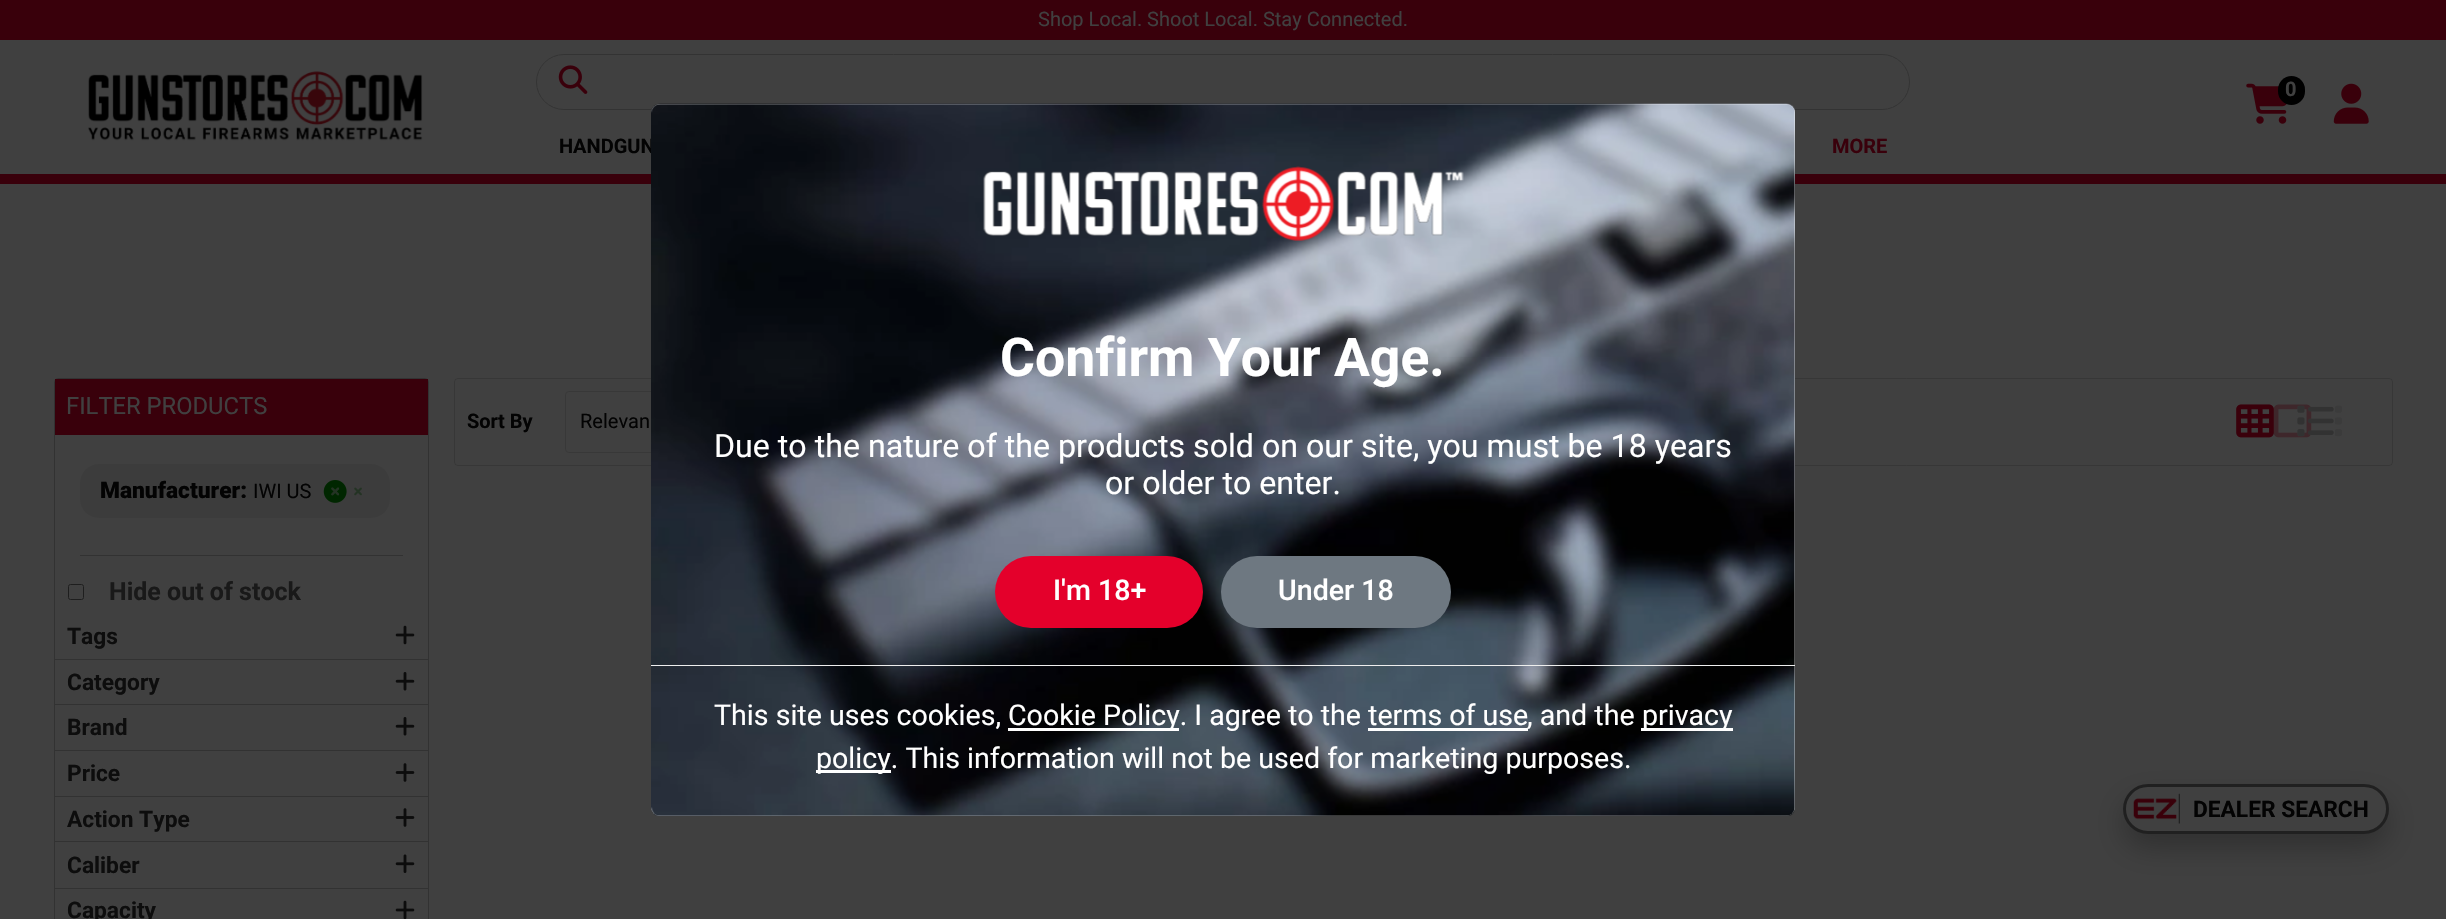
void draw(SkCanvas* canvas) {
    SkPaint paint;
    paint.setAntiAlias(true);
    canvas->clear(0xFF404040);
    paint.setColor(0xFF39000B);
    canvas->drawRect(SkRect::MakeXYWH(0, 0, 2446, 40), paint);
    SkFont font1(fontMgr->matchFamilyStyle("Roboto", SkFontStyle::Normal()), 20);
    font1.setSubpixel(true);
    paint.setColor(0xFF404040);
    canvas->drawString("Shop Local. Shoot Local. Stay Connected.", 1038, 26, font1, paint);
    paint.setColor(0xFF39000B);
    canvas->drawRect(SkRect::MakeXYWH(0, 174, 2446, 10), paint);
    canvas->drawImageRect(SkImages::DeferredFromEncodedData(SkData::MakeFromFileName("img1.png")), SkRect::MakeXYWH(88, 71, 335, 70), SkSamplingOptions());
    canvas->drawImageRect(SkImages::DeferredFromEncodedData(SkData::MakeFromFileName("img2.png")), SkRect::MakeXYWH(2246, 83, 41, 41), SkSamplingOptions());
    paint.setColor(0xFF000000);
    canvas->drawRoundRect(SkRect::MakeXYWH(2278, 76, 27, 29), 13.5f, 13.5f, paint);
    SkFont font2(fontMgr->matchFamilyStyle("Roboto", SkFontStyle::Bold()), 20);
    font2.setSubpixel(true);
    paint.setColor(0xFF404040);
    canvas->drawString("0", 2285, 96, font2, paint);
    canvas->drawImageRect(SkImages::DeferredFromEncodedData(SkData::MakeFromFileName("img3.png")), SkRect::MakeXYWH(2333, 83, 36, 41), SkSamplingOptions());
    paint.setStyle(SkPaint::kStroke_Style);
    paint.setStrokeWidth(1);
    paint.setColor(0xFF333333);
    canvas->drawRoundRect(SkRect::MakeXYWH(536.5f, 54.5f, 1373, 55), 27.5f, 27.5f, paint);
    canvas->drawImageRect(SkImages::DeferredFromEncodedData(SkData::MakeFromFileName("img4.png")), SkRect::MakeXYWH(558, 65, 30, 29), SkSamplingOptions());
    paint.setStyle(SkPaint::kFill_Style);
    paint.setColor(0xFF030303);
    canvas->drawString("HANDGUN", 559, 153, font2, paint);
    paint.setColor(0xFF39000B);
    canvas->drawString("MORE", 1832, 153, font2, paint);
    paint.setStyle(SkPaint::kStroke_Style);
    paint.setColor(0xFF323232);
    canvas->drawRoundRect(SkRect::MakeXYWH(54.5f, 378.5f, 374, 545), 3.5f, 3.5f, paint);
    paint.setStyle(SkPaint::kFill_Style);
    paint.setColor(0xFF39000B);
    canvas->drawRect(SkRect::MakeXYWH(55, 379, 373, 56), paint);
    SkFont font3(fontMgr->matchFamilyStyle("Roboto", SkFontStyle::Normal()), 23.75f);
    font3.setSubpixel(true);
    paint.setColor(0xFF404040);
    canvas->drawString("FILTER PRODUCTS", 66, 414, font3, paint);
    paint.setColor(0xFF323232);
    canvas->drawRect(SkRect::MakeXYWH(80, 555, 323, 1), paint);
    paint.setColor(0xFF3C3C3C);
    canvas->drawRoundRect(SkRect::MakeXYWH(80, 464, 310, 54), 19, 19, paint);
    SkFont font4(fontMgr->matchFamilyStyle("Roboto", SkFontStyle(900, SkFontStyle::kNormal_Width, SkFontStyle::kUpright_Slant)), 22.75f);
    font4.setSubpixel(true);
    paint.setColor(0xFF030303);
    canvas->drawString("Manufacturer:", 100, 498, font4, paint);
    canvas->drawString("IWI US", 253, 498, font1, paint);
    canvas->drawImageRect(SkImages::DeferredFromEncodedData(SkData::MakeFromFileName("img5.png")), SkRect::MakeXYWH(323, 480, 24, 23), SkSamplingOptions());
    canvas->drawImageRect(SkImages::DeferredFromEncodedData(SkData::MakeFromFileName("img6.png")), SkRect::MakeXYWH(331, 487, 31, 9), SkSamplingOptions());
    paint.setStyle(SkPaint::kStroke_Style);
    paint.setColor(0xFF1E1E1E);
    canvas->drawRoundRect(SkRect::MakeXYWH(68.5f, 584.5f, 15, 15), 2, 2, paint);
    SkFont font5(fontMgr->matchFamilyStyle("Roboto", SkFontStyle::Bold()), 25);
    font5.setSubpixel(true);
    paint.setStyle(SkPaint::kFill_Style);
    paint.setColor(0xFF191919);
    canvas->drawString("Hide out of stock", 109, 600, font5, paint);
    paint.setColor(0xFF323232);
    canvas->drawRect(SkRect::MakeXYWH(55, 659, 373, 1), paint);
    SkFont font6(fontMgr->matchFamilyStyle("Roboto", SkFontStyle::Bold()), 22.75f);
    font6.setSubpixel(true);
    paint.setColor(0xFF0D0D0D);
    canvas->drawString("Tags", 67, 644, font6, paint);
    canvas->drawImageRect(SkImages::DeferredFromEncodedData(SkData::MakeFromFileName("img7.png")), SkRect::MakeXYWH(395, 625, 20, 20), SkSamplingOptions());
    paint.setColor(0xFF323232);
    canvas->drawRect(SkRect::MakeXYWH(55, 704, 373, 1), paint);
    paint.setColor(0xFF0D0D0D);
    canvas->drawString("Category", 67, 690, font6, paint);
    canvas->drawImageRect(SkImages::DeferredFromEncodedData(SkData::MakeFromFileName("img8.png")), SkRect::MakeXYWH(395, 672, 20, 19), SkSamplingOptions());
    paint.setColor(0xFF323232);
    canvas->drawRect(SkRect::MakeXYWH(55, 750, 373, 1), paint);
    paint.setColor(0xFF0D0D0D);
    canvas->drawString("Brand", 67, 735, font6, paint);
    canvas->drawImageRect(SkImages::DeferredFromEncodedData(SkData::MakeFromFileName("img8.png")), SkRect::MakeXYWH(395, 717, 20, 19), SkSamplingOptions());
    paint.setColor(0xFF323232);
    canvas->drawRect(SkRect::MakeXYWH(55, 796, 373, 1), paint);
    paint.setColor(0xFF0D0D0D);
    canvas->drawString("Price", 67, 781, font6, paint);
    canvas->drawImageRect(SkImages::DeferredFromEncodedData(SkData::MakeFromFileName("img9.png")), SkRect::MakeXYWH(395, 763, 20, 19), SkSamplingOptions());
    paint.setColor(0xFF323232);
    canvas->drawRect(SkRect::MakeXYWH(55, 841, 373, 1), paint);
    paint.setColor(0xFF0D0D0D);
    canvas->drawString("Action Type", 67, 827, font6, paint);
    canvas->drawImageRect(SkImages::DeferredFromEncodedData(SkData::MakeFromFileName("img9.png")), SkRect::MakeXYWH(395, 808, 20, 19), SkSamplingOptions());
    paint.setColor(0xFF323232);
    canvas->drawRect(SkRect::MakeXYWH(55, 888, 373, 1), paint);
    paint.setColor(0xFF0D0D0D);
    canvas->drawString("Caliber", 67, 873, font6, paint);
    canvas->drawImageRect(SkImages::DeferredFromEncodedData(SkData::MakeFromFileName("img10.png")), SkRect::MakeXYWH(395, 854, 20, 19), SkSamplingOptions());
    canvas->drawString("Capacity", 67, 918, font6, paint);
    canvas->drawImageRect(SkImages::DeferredFromEncodedData(SkData::MakeFromFileName("img11.png")), SkRect::MakeXYWH(395, 900, 20, 19), SkSamplingOptions());
    paint.setStyle(SkPaint::kStroke_Style);
    paint.setColor(0x702C2C2C);
    canvas->drawRoundRect(SkRect::MakeXYWH(454.5f, 378.5f, 1938, 87), 3.5f, 3.5f, paint);
    paint.setStyle(SkPaint::kFill_Style);
    paint.setColor(0xFF030303);
    canvas->drawString("Sort By", 467, 428, font2, paint);
    paint.setStyle(SkPaint::kStroke_Style);
    paint.setColor(0xFF383838);
    canvas->drawRoundRect(SkRect::MakeXYWH(565.5f, 391.5f, 150, 61), 3.5f, 3.5f, paint);
    paint.setStyle(SkPaint::kFill_Style);
    paint.setColor(0xFF030303);
    canvas->drawString("Relevan", 580, 428, font1, paint);
    canvas->drawImageRect(SkImages::DeferredFromEncodedData(SkData::MakeFromFileName("img12.png")), SkRect::MakeXYWH(2236, 404, 38, 34), SkSamplingOptions());
    canvas->drawImageRect(SkImages::DeferredFromEncodedData(SkData::MakeFromFileName("img13.png")), SkRect::MakeXYWH(2236, 404, 76, 34), SkSamplingOptions());
    canvas->drawImageRect(SkImages::DeferredFromEncodedData(SkData::MakeFromFileName("img14.png")), SkRect::MakeXYWH(2297, 405, 37, 32), SkSamplingOptions());
    canvas->drawImageRect(SkImages::DeferredFromEncodedData(SkData::MakeFromFileName("img15.png")), SkRect::MakeXYWH(2297, 405, 45, 32), SkSamplingOptions());
    paint.setColor(0xFFFFFFFF);
    canvas->drawRoundRect(SkRect::MakeXYWH(651, 104, 1144, 712), 9, 9, paint);
    canvas->drawImageRect(SkImages::DeferredFromEncodedData(SkData::MakeFromFileName("img16.png")), SkRect::MakeXYWH(651, 103, 1144, 713), SkSamplingOptions());
    canvas->drawImageRect(SkImages::DeferredFromEncodedData(SkData::MakeFromFileName("img17.png")), SkRect::MakeXYWH(983, 166, 481, 75), SkSamplingOptions());
    SkFont font7(fontMgr->matchFamilyStyle("Roboto", SkFontStyle::Bold()), 53.5f);
    font7.setSubpixel(true);
    canvas->drawString("Confirm Your Age.", 1000, 376, font7, paint);
    SkFont font8(fontMgr->matchFamilyStyle("Roboto", SkFontStyle::Normal()), 32.15f);
    font8.setSubpixel(true);
    canvas->drawString("Due to the nature of the products sold on our site, you must be 18 years", 714, 457, font8, paint);
    canvas->drawString("or older to enter.", 1105, 494, font8, paint);
    paint.setColor(0xFFE4002B);
    canvas->drawRoundRect(SkRect::MakeXYWH(995, 556, 208, 72), 36, 36, paint);
    SkFont font9(fontMgr->matchFamilyStyle("Roboto", SkFontStyle(500, SkFontStyle::kNormal_Width, SkFontStyle::kUpright_Slant)), 28.6f);
    font9.setSubpixel(true);
    paint.setColor(0xFFFFFFFF);
    canvas->drawString("I'm 18+", 1053, 600, font9, paint);
    paint.setColor(0xFF6E7881);
    canvas->drawRoundRect(SkRect::MakeXYWH(1221, 556, 230, 72), 36, 36, paint);
    paint.setColor(0xFFFFFFFF);
    canvas->drawString("Under 18", 1278, 600, font9, paint);
    paint.setColor(0xFFEEEEEE);
    canvas->drawRect(SkRect::MakeXYWH(651, 665, 1144, 1), paint);
    SkFont font10(fontMgr->matchFamilyStyle("Roboto", SkFontStyle::Normal()), 28.6f);
    font10.setSubpixel(true);
    paint.setColor(0xFFFFFFFF);
    canvas->drawString("This site uses cookies,", 714, 725, font10, paint);
    canvas->drawRect(SkRect::MakeXYWH(1008, 728, 171, 3), paint);
    canvas->drawString("Cookie Policy. I agree to the terms of use", 1008, 725, font10, paint);
    canvas->drawRect(SkRect::MakeXYWH(1368, 728, 160, 3), paint);
    canvas->drawString(", and the", 1527, 725, font10, paint);
    canvas->drawRect(SkRect::MakeXYWH(1641, 728, 92, 3), paint);
    canvas->drawString("privacy", 1642, 725, font10, paint);
    canvas->drawRect(SkRect::MakeXYWH(816, 770, 75, 3), paint);
    canvas->drawString("policy. This information will not be used for marketing purposes.", 816, 768, font10, paint);
    paint.setColor(0x40000000);
    paint.setMaskFilter(SkMaskFilter::MakeBlur(kNormal_SkBlurStyle, 14.5f));
    canvas->drawRoundRect(SkRect::MakeXYWH(2123, 798, 266, 50), 25, 25, paint);
    paint.setMaskFilter(nullptr);
    paint.setColor(0xFF404040);
    canvas->drawRoundRect(SkRect::MakeXYWH(2124.5f, 785.5f, 263, 47), 23.5f, 23.5f, paint);
    paint.setStyle(SkPaint::kStroke_Style);
    paint.setStrokeWidth(3);
    paint.setColor(0xFF202020);
    canvas->drawRoundRect(SkRect::MakeXYWH(2124.5f, 785.5f, 263, 47), 23.5f, 23.5f, paint);
    canvas->drawImageRect(SkImages::DeferredFromEncodedData(SkData::MakeFromFileName("img18.png")), SkRect::MakeXYWH(2133, 793, 47, 31), SkSamplingOptions());
    paint.setStyle(SkPaint::kFill_Style);
    paint.setColor(0xFF030303);
    canvas->drawString("DEALER SEARCH", 2193, 817, font6, paint);
}
